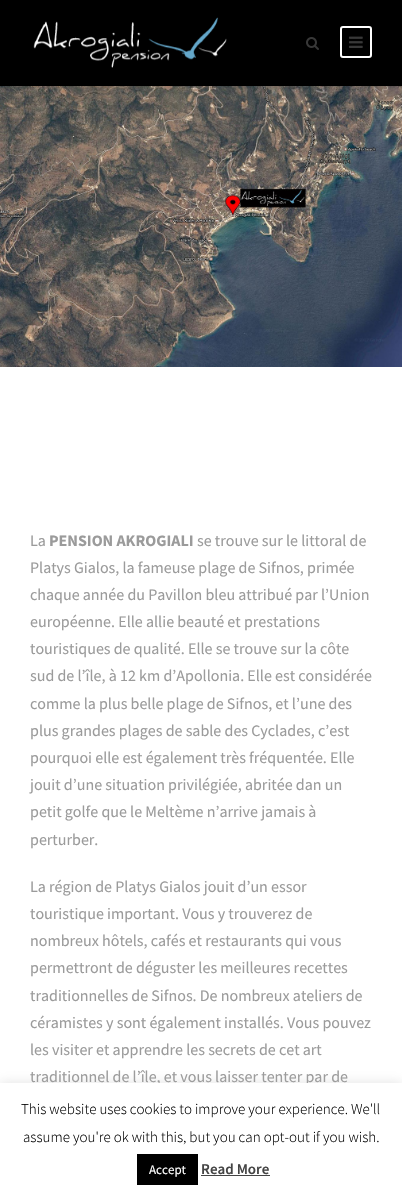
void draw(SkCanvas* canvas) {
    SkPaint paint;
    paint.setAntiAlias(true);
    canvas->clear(0xFFFFFFFF);
    canvas->drawImageRect(SkImages::DeferredFromEncodedData(SkData::MakeFromFileName("img4.png")), SkRect::MakeXYWH(0, 86, 402, 281), SkSamplingOptions());
    paint.setColor(0x1A000000);
    paint.setMaskFilter(SkMaskFilter::MakeBlur(kNormal_SkBlurStyle, 1));
    canvas->drawRect(SkRect::MakeXYWH(0, 1, 402, 86), paint);
    paint.setMaskFilter(nullptr);
    paint.setColor(0xFF000000);
    canvas->drawRect(SkRect::MakeXYWH(0, 0, 402, 86), paint);
    canvas->drawImageRect(SkImages::DeferredFromEncodedData(SkData::MakeFromFileName("img1.png")), SkRect::MakeXYWH(33, 17, 194, 51), SkSamplingOptions());
    canvas->drawImageRect(SkImages::DeferredFromEncodedData(SkData::MakeFromFileName("img2.png")), SkRect::MakeXYWH(306, 37, 13, 13), SkSamplingOptions());
    paint.setStyle(SkPaint::kStroke_Style);
    paint.setStrokeWidth(2);
    paint.setColor(0xFFFFFFFF);
    canvas->drawRoundRect(SkRect::MakeXYWH(341, 27, 30, 30), 2, 2, paint);
    canvas->drawImageRect(SkImages::DeferredFromEncodedData(SkData::MakeFromFileName("img3.png")), SkRect::MakeXYWH(349, 36, 14, 12), SkSamplingOptions());
    SkFont font1(fontMgr->matchFamilyStyle("Source Sans Pro", SkFontStyle::Normal()), 16);
    font1.setSubpixel(true);
    paint.setStyle(SkPaint::kFill_Style);
    paint.setColor(0xFF9B9B9B);
    canvas->drawString("La", 30, 546, font1, paint);
    SkFont font2(fontMgr->matchFamilyStyle("Source Sans Pro", SkFontStyle::Bold()), 16);
    font2.setSubpixel(true);
    canvas->drawString("PENSION AKROGIALI", 49, 546, font2, paint);
    canvas->drawString("se trouve sur le littoral de", 197, 546, font1, paint);
    canvas->drawString("Platys Gialos, la fameuse plage de Sifnos, primée", 30, 573, font1, paint);
    canvas->drawString("chaque année du Pavillon bleu attribué par l’Union", 30, 600, font1, paint);
    canvas->drawString("européenne. Elle allie beauté et prestations", 30, 627, font1, paint);
    canvas->drawString("touristiques de qualité. Elle se trouve sur la côte", 30, 654, font1, paint);
    canvas->drawString("sud de l’île, à 12 km d’Apollonia. Elle est considérée", 30, 681, font1, paint);
    canvas->drawString("comme la plus belle plage de Sifnos, et l’une des", 30, 709, font1, paint);
    canvas->drawString("plus grandes plages de sable des Cyclades, c’est", 30, 736, font1, paint);
    canvas->drawString("pourquoi elle est également très fréquentée. Elle", 30, 763, font1, paint);
    canvas->drawString("jouit d’une situation privilégiée, abritée dan un", 30, 790, font1, paint);
    canvas->drawString("petit golfe que le Meltème n’arrive jamais à", 30, 817, font1, paint);
    canvas->drawString("perturber.", 30, 845, font1, paint);
    canvas->drawString("La région de Platys Gialos jouit d’un essor", 30, 892, font1, paint);
    canvas->drawString("touristique important. Vous y trouverez de", 30, 919, font1, paint);
    canvas->drawString("nombreux hôtels, cafés et restaurants qui vous", 30, 946, font1, paint);
    canvas->drawString("permettront de déguster les meilleures recettes", 30, 973, font1, paint);
    canvas->drawString("traditionnelles de Sifnos. De nombreux ateliers de", 30, 1001, font1, paint);
    canvas->drawString("céramistes y sont également installés. Vous pouvez", 30, 1028, font1, paint);
    canvas->drawString("les visiter et apprendre les secrets de cet art", 30, 1055, font1, paint);
    canvas->drawString("traditionnel de l’île, et vous laisser tenter par de", 30, 1082, font1, paint);
    paint.setColor(0x4DACABAB);
    paint.setMaskFilter(SkMaskFilter::MakeBlur(kNormal_SkBlurStyle, 5));
    canvas->drawRect(SkRect::MakeXYWH(0, 1082, 402, 114), paint);
    paint.setMaskFilter(nullptr);
    paint.setColor(0xFFFFFFFF);
    canvas->drawRect(SkRect::MakeXYWH(0, 1083, 402, 114), paint);
    SkFont font3(fontMgr->matchFamilyStyle("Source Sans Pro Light", SkFontStyle(300, SkFontStyle::kNormal_Width, SkFontStyle::kUpright_Slant)), 15);
    font3.setSubpixel(true);
    paint.setColor(0xFF000000);
    canvas->drawString("This website uses cookies to improve your experience. We'll", 21, 1114, font3, paint);
    canvas->drawString("assume you're ok with this, but you can opt-out if you wish.", 23, 1142, font3, paint);
    canvas->drawRect(SkRect::MakeXYWH(137, 1154, 61, 31), paint);
    SkFont font4(fontMgr->matchFamilyStyle("Source Sans Pro", SkFontStyle::Normal()), 13);
    font4.setSubpixel(true);
    paint.setColor(0xFFFFFFFF);
    canvas->drawString("Accept", 149, 1174, font4, paint);
    SkFont font5(fontMgr->matchFamilyStyle("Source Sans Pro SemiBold", SkFontStyle(600, SkFontStyle::kNormal_Width, SkFontStyle::kUpright_Slant)), 15);
    font5.setSubpixel(true);
    paint.setColor(0xFF444444);
    canvas->drawString("Read More", 201, 1174, font5, paint);
    canvas->drawRect(SkRect::MakeXYWH(201, 1175, 69, 1), paint);
}
